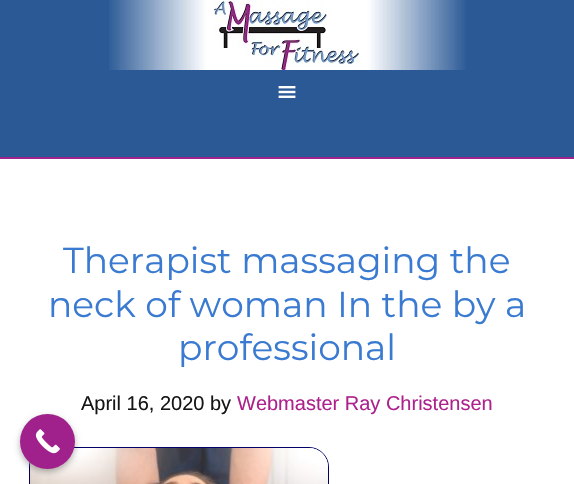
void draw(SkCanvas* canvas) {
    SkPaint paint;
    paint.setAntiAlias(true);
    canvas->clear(0xFFFFFFFF);
    paint.setColor(0xFF2A5996);
    canvas->drawRect(SkRect::MakeXYWH(0, 0, 574, 157), paint);
    paint.setColor(0xFFA0218C);
    canvas->drawRect(SkRect::MakeXYWH(0, 157, 574, 2), paint);
    canvas->drawImageRect(SkImages::DeferredFromEncodedData(SkData::MakeFromFileName("img1.png")), SkRect::MakeXYWH(109, 0, 357, 70), SkSamplingOptions());
    canvas->drawImageRect(SkImages::DeferredFromEncodedData(SkData::MakeFromFileName("img2.png")), SkRect::MakeXYWH(278, 86, 18, 12), SkSamplingOptions());
    SkFont font1(fontMgr->matchFamilyStyle("Montserrat", SkFontStyle(100, SkFontStyle::kNormal_Width, SkFontStyle::kUpright_Slant)), 36);
    font1.setSubpixel(true);
    paint.setColor(0xFF3A7BD1);
    canvas->drawString("Therapist massaging the", 63, 273, font1, paint);
    canvas->drawString("neck of woman In the by a", 48, 317, font1, paint);
    canvas->drawString("professional", 178, 360, font1, paint);
    SkFont font2(fontMgr->matchFamilyStyle("Liberation Sans", SkFontStyle::Normal()), 20);
    font2.setSubpixel(true);
    paint.setColor(0xFF161616);
    canvas->drawString("April 16, 2020 by", 81, 410, font2, paint);
    paint.setColor(0xFFAD218C);
    canvas->drawString("Webmaster Ray Christensen", 237, 410, font2, paint);
    paint.setStyle(SkPaint::kStroke_Style);
    paint.setStrokeWidth(1);
    paint.setColor(0xFF000066);
    canvas->drawRoundRect(SkRect::MakeXYWH(29.5f, 447.5f, 299, 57), 19.5f, 19.5f, paint);
    canvas->drawImageRect(SkImages::DeferredFromEncodedData(SkData::MakeFromFileName("img3.png")), SkRect::MakeXYWH(30, 448, 298, 36), SkSamplingOptions());
    paint.setStyle(SkPaint::kFill_Style);
    paint.setColor(0x4D000000);
    paint.setMaskFilter(SkMaskFilter::MakeBlur(kNormal_SkBlurStyle, 3));
    canvas->drawRoundRect(SkRect::MakeXYWH(20, 417, 55, 55), 27.5f, 27.5f, paint);
    paint.setMaskFilter(nullptr);
    paint.setColor(0xFFA0218C);
    canvas->drawCircle(47.5f, 441.5f, 27.5f, paint);
    canvas->drawImageRect(SkImages::DeferredFromEncodedData(SkData::MakeFromFileName("img4.png")), SkRect::MakeXYWH(35, 429, 25, 25), SkSamplingOptions());
}
